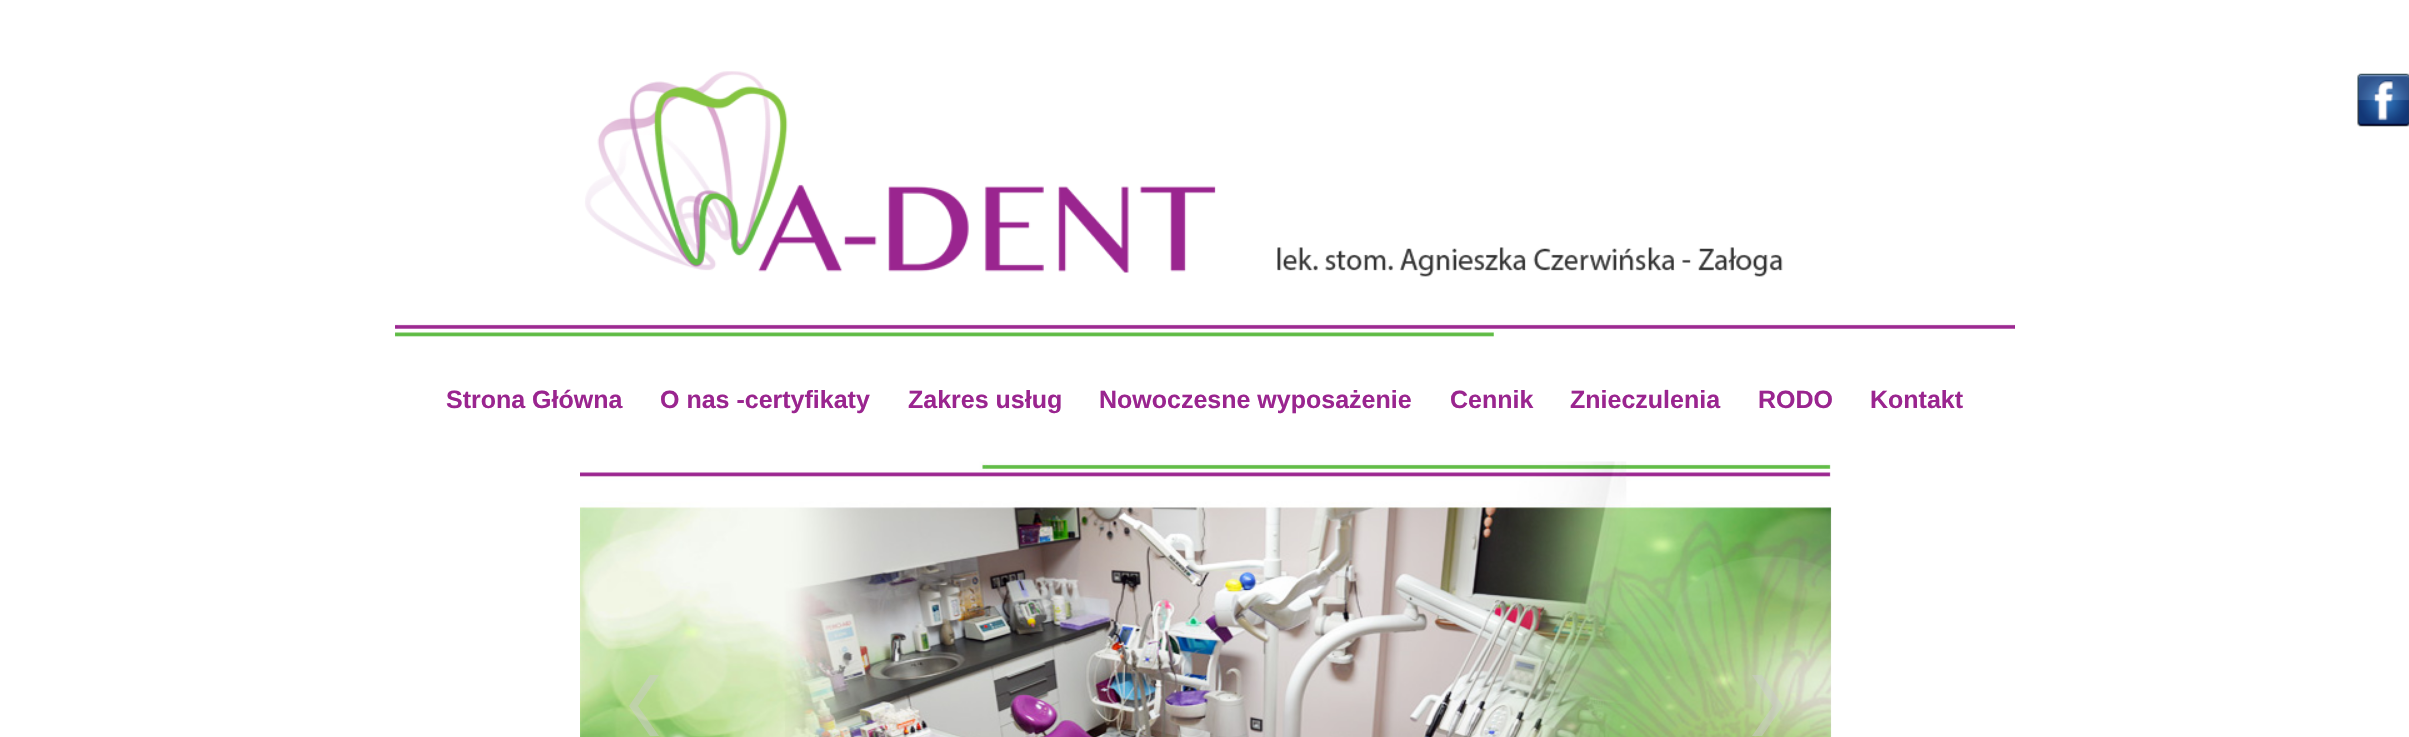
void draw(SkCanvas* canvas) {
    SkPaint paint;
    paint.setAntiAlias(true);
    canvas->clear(0xFFFFFFFF);
    canvas->drawImageRect(SkImages::DeferredFromEncodedData(SkData::MakeFromFileName("img1.png")), SkRect::MakeXYWH(2357, 73, 52, 54), SkSamplingOptions());
    canvas->drawImageRect(SkImages::DeferredFromEncodedData(SkData::MakeFromFileName("img2.png")), SkRect::MakeXYWH(395, 71, 1620, 266), SkSamplingOptions());
    SkFont font1(fontMgr->matchFamilyStyle("Liberation Sans", SkFontStyle::Bold()), 25);
    font1.setSubpixel(true);
    paint.setColor(0xFF9A258F);
    canvas->drawString("Strona Główna", 446, 408, font1, paint);
    canvas->drawString("O nas -certyfikaty", 660, 408, font1, paint);
    canvas->drawString("Zakres usług", 908, 408, font1, paint);
    canvas->drawString("Nowoczesne wyposażenie", 1099, 408, font1, paint);
    canvas->drawString("Cennik", 1450, 408, font1, paint);
    canvas->drawString("Znieczulenia", 1570, 408, font1, paint);
    canvas->drawString("RODO", 1758, 408, font1, paint);
    canvas->drawString("Kontakt", 1870, 408, font1, paint);
    canvas->drawImageRect(SkImages::DeferredFromEncodedData(SkData::MakeFromFileName("img3.png")), SkRect::MakeXYWH(580, 461, 1252, 276), SkSamplingOptions());
    paint.setColor(0x80CCCCCC);
    canvas->drawPath(SkPathBuilder().moveTo(629, 706).lineTo(650, 675).lineTo(659, 675).lineTo(638, 706).lineTo(659, 736).lineTo(650, 736).close().detach(), paint);
    canvas->drawPath(SkPathBuilder().moveTo(1783, 706).lineTo(1762, 675).lineTo(1752, 675).lineTo(1773, 706).lineTo(1752, 736).lineTo(1762, 736).close().detach(), paint);
}
